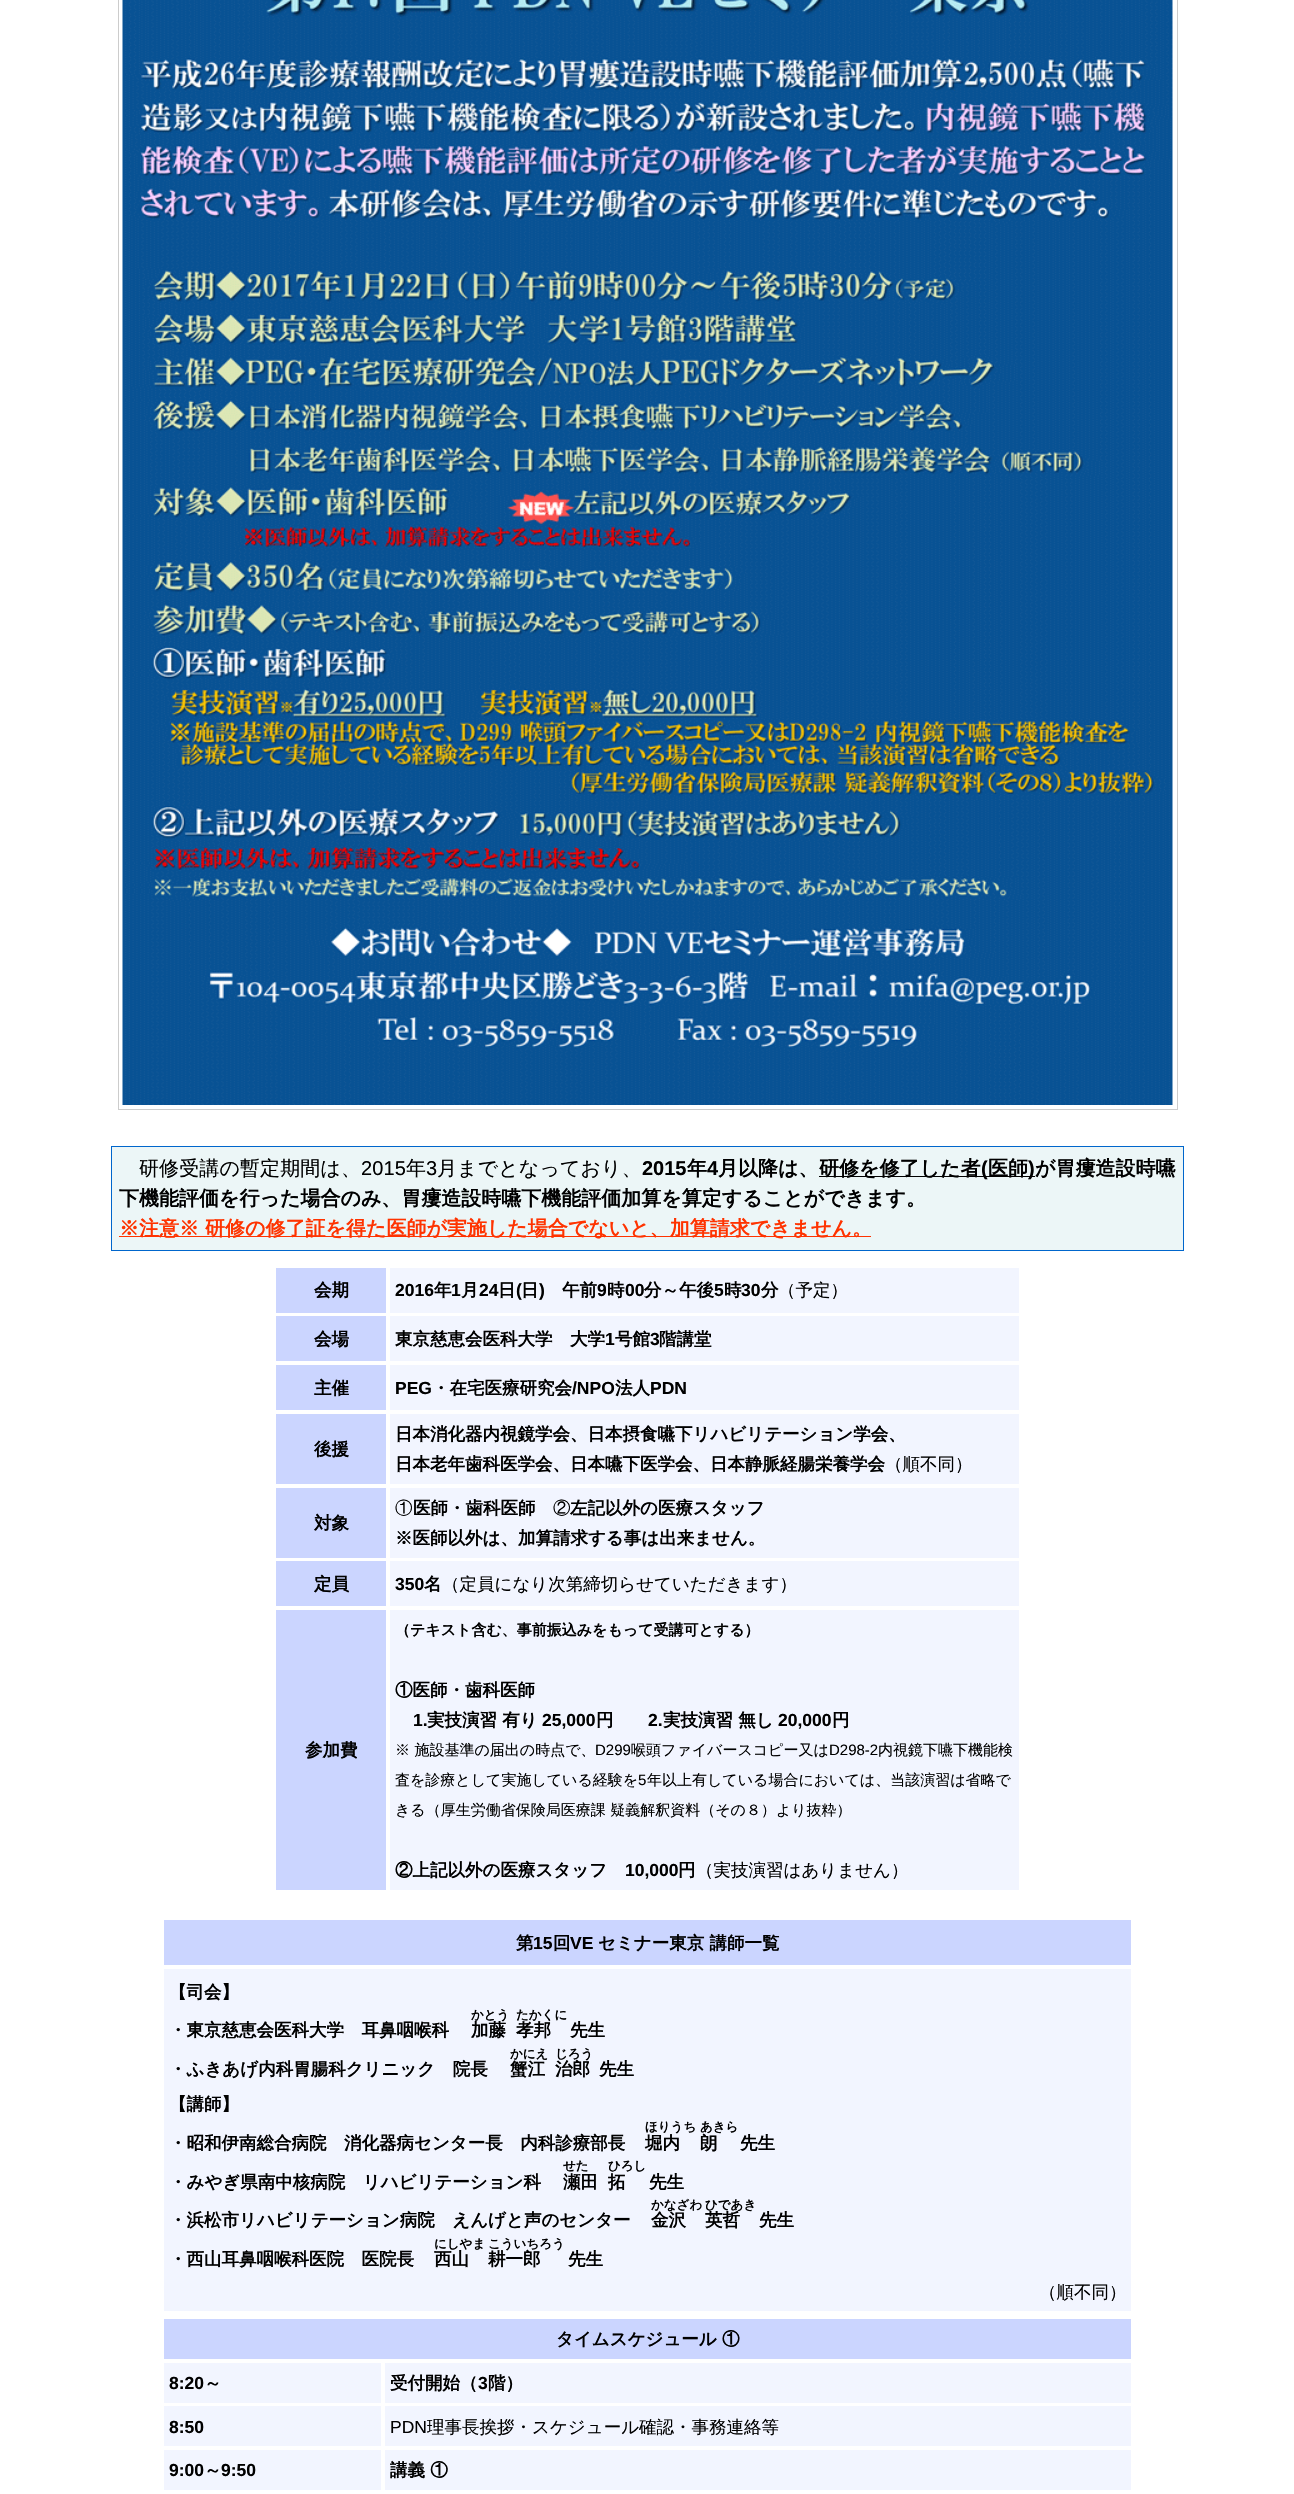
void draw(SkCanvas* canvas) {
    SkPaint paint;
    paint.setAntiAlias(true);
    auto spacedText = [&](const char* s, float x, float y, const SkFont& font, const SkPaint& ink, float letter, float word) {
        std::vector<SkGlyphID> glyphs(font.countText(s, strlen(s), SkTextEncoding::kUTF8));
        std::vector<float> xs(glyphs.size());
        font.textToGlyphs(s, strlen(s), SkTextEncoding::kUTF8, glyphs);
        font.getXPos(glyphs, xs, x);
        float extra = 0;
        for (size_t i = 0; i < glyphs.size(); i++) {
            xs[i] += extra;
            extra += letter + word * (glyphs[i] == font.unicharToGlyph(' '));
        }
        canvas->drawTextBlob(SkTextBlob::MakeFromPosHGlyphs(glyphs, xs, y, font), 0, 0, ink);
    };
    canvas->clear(0xFFFFFFFF);
    paint.setStyle(SkPaint::kStroke_Style);
    paint.setStrokeWidth(1);
    paint.setColor(0xFFCCCCCC);
    canvas->drawRect(SkRect::MakeXYWH(118.5f, -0.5f, 1059, 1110), paint);
    canvas->drawImageRect(SkImages::DeferredFromEncodedData(SkData::MakeFromFileName("img1.png")), SkRect::MakeXYWH(122, 0, 1051, 1105), SkSamplingOptions());
    paint.setStyle(SkPaint::kFill_Style);
    paint.setColor(0xFFECF6F7);
    canvas->drawRect(SkRect::MakeXYWH(111.5f, 1146.5f, 1072, 104), paint);
    paint.setStyle(SkPaint::kStroke_Style);
    paint.setColor(0xFF0066CC);
    canvas->drawRect(SkRect::MakeXYWH(111.5f, 1146.5f, 1072, 104), paint);
    SkFont font1(fontMgr->matchFamilyStyle("WenQuanYi Zen Hei", SkFontStyle(500, SkFontStyle::kNormal_Width, SkFontStyle::kUpright_Slant)), 20);
    font1.setSubpixel(true);
    paint.setStyle(SkPaint::kFill_Style);
    paint.setColor(0xFF000000);
    spacedText("研修受講の暫定期間は、", 139, 1175, font1, paint, 0.1f, 0);
    SkFont font2(fontMgr->matchFamilyStyle("Liberation Sans", SkFontStyle::Normal()), 20);
    font2.setSubpixel(true);
    spacedText("2015", 361, 1175, font2, paint, 0.1f, 0);
    spacedText("年", 406, 1175, font1, paint, 0.1f, 0);
    spacedText("3", 426, 1175, font2, paint, 0.1f, 0);
    spacedText("月までとなっており、", 437, 1175, font1, paint, 0.1f, 0);
    SkFont font3(fontMgr->matchFamilyStyle("Liberation Sans", SkFontStyle::Bold()), 20);
    font3.setSubpixel(true);
    canvas->drawString("2015", 642, 1175, font3, paint);
    SkFont font4(fontMgr->matchFamilyStyle("WenQuanYi Zen Hei", SkFontStyle::Bold()), 20);
    font4.setSubpixel(true);
    canvas->drawString("年", 687, 1175, font4, paint);
    canvas->drawString("4", 707, 1175, font3, paint);
    canvas->drawString("月以降は、", 718, 1175, font4, paint);
    canvas->drawRect(SkRect::MakeXYWH(819, 1176, 216, 1), paint);
    canvas->drawString("研修を修了した者", 819, 1175, font4, paint);
    canvas->drawString("(", 981, 1175, font3, paint);
    canvas->drawString("医師", 988, 1175, font4, paint);
    canvas->drawString(")", 1028, 1175, font3, paint);
    canvas->drawString("が胃瘻造設時嚥", 1035, 1175, font4, paint);
    canvas->drawString("下機能評価を行った場合のみ、胃瘻造設時嚥下機能評価加算を算定することができます。", 119, 1205, font4, paint);
    paint.setColor(0xFFFF3300);
    canvas->drawRect(SkRect::MakeXYWH(119, 1236, 752, 1), paint);
    canvas->drawString("※注意※ 研修の修了証を得た医師が実施した場合でないと、加算請求できません。", 119, 1235, font4, paint);
    paint.setColor(0xFFCBD5FF);
    canvas->drawRect(SkRect::MakeXYWH(276, 1268, 110, 45), paint);
    SkFont font5(fontMgr->matchFamilyStyle("WenQuanYi Zen Hei", SkFontStyle::Bold()), 17.5f);
    font5.setSubpixel(true);
    paint.setColor(0xFF000000);
    canvas->drawString("会期", 314, 1296, font5, paint);
    paint.setColor(0xFFF2F5FF);
    canvas->drawRect(SkRect::MakeXYWH(390, 1268, 629, 45), paint);
    SkFont font6(fontMgr->matchFamilyStyle("Liberation Sans", SkFontStyle::Bold()), 17.5f);
    font6.setSubpixel(true);
    paint.setColor(0xFF000000);
    canvas->drawString("2016", 395, 1296, font6, paint);
    canvas->drawString("年", 434, 1296, font5, paint);
    canvas->drawString("1", 451, 1296, font6, paint);
    canvas->drawString("月", 461, 1296, font5, paint);
    canvas->drawString("24", 479, 1296, font6, paint);
    canvas->drawString("日", 498, 1296, font5, paint);
    canvas->drawString("(", 516, 1296, font6, paint);
    canvas->drawString("日", 521, 1296, font5, paint);
    canvas->drawString(")", 539, 1296, font6, paint);
    canvas->drawString("午前", 562, 1296, font5, paint);
    canvas->drawString("9", 597, 1296, font6, paint);
    canvas->drawString("時", 607, 1296, font5, paint);
    canvas->drawString("00", 625, 1296, font6, paint);
    canvas->drawString("分～午後", 644, 1296, font5, paint);
    canvas->drawString("5", 714, 1296, font6, paint);
    canvas->drawString("時", 724, 1296, font5, paint);
    canvas->drawString("30", 741, 1296, font6, paint);
    canvas->drawString("分", 761, 1296, font5, paint);
    SkFont font7(fontMgr->matchFamilyStyle("WenQuanYi Zen Hei", SkFontStyle(500, SkFontStyle::kNormal_Width, SkFontStyle::kUpright_Slant)), 17.5f);
    font7.setSubpixel(true);
    canvas->drawString("（予定）", 778, 1296, font7, paint);
    paint.setColor(0xFFCBD5FF);
    canvas->drawRect(SkRect::MakeXYWH(276, 1316, 110, 45), paint);
    paint.setColor(0xFF000000);
    canvas->drawString("会場", 314, 1345, font5, paint);
    paint.setColor(0xFFF2F5FF);
    canvas->drawRect(SkRect::MakeXYWH(390, 1316, 629, 45), paint);
    paint.setColor(0xFF000000);
    canvas->drawString("東京慈恵会医科大学　大学", 395, 1345, font5, paint);
    canvas->drawString("1", 605, 1345, font6, paint);
    canvas->drawString("号館", 615, 1345, font5, paint);
    canvas->drawString("3", 650, 1345, font6, paint);
    canvas->drawString("階講堂", 659, 1345, font5, paint);
    paint.setColor(0xFFCBD5FF);
    canvas->drawRect(SkRect::MakeXYWH(276, 1365, 110, 45), paint);
    paint.setColor(0xFF000000);
    canvas->drawString("主催", 314, 1394, font5, paint);
    paint.setColor(0xFFF2F5FF);
    canvas->drawRect(SkRect::MakeXYWH(390, 1365, 629, 45), paint);
    paint.setColor(0xFF000000);
    canvas->drawString("PEG", 395, 1394, font6, paint);
    canvas->drawString("・在宅医療研究会", 432, 1394, font5, paint);
    canvas->drawString("/NPO", 572, 1394, font6, paint);
    canvas->drawString("法人", 615, 1394, font5, paint);
    canvas->drawString("PDN", 650, 1394, font6, paint);
    paint.setColor(0xFFCBD5FF);
    canvas->drawRect(SkRect::MakeXYWH(276, 1414, 110, 70), paint);
    paint.setColor(0xFF000000);
    canvas->drawString("後援", 314, 1455, font5, paint);
    paint.setColor(0xFFF2F5FF);
    canvas->drawRect(SkRect::MakeXYWH(390, 1414, 629, 70), paint);
    paint.setColor(0xFF000000);
    canvas->drawString("日本消化器内視鏡学会、日本摂食嚥下リハビリテーション学会、", 395, 1440, font5, paint);
    canvas->drawString("日本老年歯科医学会、日本嚥下医学会、日本静脈経腸栄養学会", 395, 1470, font5, paint);
    canvas->drawString("（順不同）", 885, 1470, font7, paint);
    paint.setColor(0xFFCBD5FF);
    canvas->drawRect(SkRect::MakeXYWH(276, 1488, 110, 70), paint);
    paint.setColor(0xFF000000);
    canvas->drawString("対象", 314, 1529, font5, paint);
    paint.setColor(0xFFF2F5FF);
    canvas->drawRect(SkRect::MakeXYWH(390, 1488, 629, 70), paint);
    paint.setColor(0xFF000000);
    canvas->drawString("①", 395, 1514, font7, paint);
    canvas->drawString("医師・歯科医師", 413, 1514, font5, paint);
    canvas->drawString("②", 553, 1514, font7, paint);
    canvas->drawString("左記以外の医療スタッフ", 570, 1514, font5, paint);
    canvas->drawString("※医師以外は、加算請求する事は出来ません。", 395, 1544, font5, paint);
    paint.setColor(0xFFCBD5FF);
    canvas->drawRect(SkRect::MakeXYWH(276, 1561, 110, 45), paint);
    paint.setColor(0xFF000000);
    canvas->drawString("定員", 314, 1590, font5, paint);
    paint.setColor(0xFFF2F5FF);
    canvas->drawRect(SkRect::MakeXYWH(390, 1561, 629, 45), paint);
    paint.setColor(0xFF000000);
    canvas->drawString("350", 395, 1590, font6, paint);
    canvas->drawString("名", 424, 1590, font5, paint);
    canvas->drawString("（定員になり次第締切らせていただきます）", 442, 1590, font7, paint);
    paint.setColor(0xFFCBD5FF);
    canvas->drawRect(SkRect::MakeXYWH(276, 1610, 110, 280), paint);
    paint.setColor(0xFF000000);
    canvas->drawString("参加費", 305, 1756, font5, paint);
    paint.setColor(0xFFF2F5FF);
    canvas->drawRect(SkRect::MakeXYWH(390, 1610, 629, 280), paint);
    SkFont font8(fontMgr->matchFamilyStyle("WenQuanYi Zen Hei", SkFontStyle::Bold()), 15);
    font8.setSubpixel(true);
    paint.setColor(0xFF000000);
    canvas->drawString("（テキスト含む、事前振込みをもって受講可とする）", 395, 1635, font8, paint);
    canvas->drawString("①医師・歯科医師", 395, 1696, font5, paint);
    canvas->drawString("1.", 413, 1726, font6, paint);
    canvas->drawString("実技演習 有り", 427, 1726, font5, paint);
    canvas->drawString("25,000", 542, 1726, font6, paint);
    canvas->drawString("円", 596, 1726, font5, paint);
    canvas->drawString("2.", 648, 1726, font6, paint);
    canvas->drawString("実技演習 無し", 663, 1726, font5, paint);
    canvas->drawString("20,000", 778, 1726, font6, paint);
    canvas->drawString("円", 832, 1726, font5, paint);
    SkFont font9(fontMgr->matchFamilyStyle("WenQuanYi Zen Hei", SkFontStyle(500, SkFontStyle::kNormal_Width, SkFontStyle::kUpright_Slant)), 15);
    font9.setSubpixel(true);
    canvas->drawString("※ 施設基準の届出の時点で、", 395, 1755, font9, paint);
    SkFont font10(fontMgr->matchFamilyStyle("Liberation Sans", SkFontStyle::Normal()), 15);
    font10.setSubpixel(true);
    canvas->drawString("D299", 595, 1755, font10, paint);
    canvas->drawString("喉頭ファイバースコピー又は", 631, 1755, font9, paint);
    canvas->drawString("D298-2", 829, 1755, font10, paint);
    canvas->drawString("内視鏡下嚥下機能検", 878, 1755, font9, paint);
    canvas->drawString("査を診療として実施している経験を", 395, 1785, font9, paint);
    canvas->drawString("5", 638, 1785, font10, paint);
    canvas->drawString("年以上有している場合においては、当該演習は省略で", 647, 1785, font9, paint);
    canvas->drawString("きる（厚生労働省保険局医療課 疑義解釈資料（その８）より抜粋）", 395, 1815, font9, paint);
    canvas->drawString("②上記以外の医療スタッフ", 395, 1876, font5, paint);
    canvas->drawString("10,000", 625, 1876, font6, paint);
    canvas->drawString("円", 678, 1876, font5, paint);
    canvas->drawString("（実技演習はありません）", 696, 1876, font7, paint);
    paint.setColor(0xFFCBD5FF);
    canvas->drawRect(SkRect::MakeXYWH(164, 1920, 967, 45), paint);
    paint.setColor(0xFF000000);
    canvas->drawString("第", 516, 1949, font5, paint);
    canvas->drawString("15", 533, 1949, font6, paint);
    canvas->drawString("回", 553, 1949, font5, paint);
    canvas->drawString("VE", 570, 1949, font6, paint);
    canvas->drawString("セミナー東京 講師一覧", 598, 1949, font5, paint);
    paint.setColor(0xFFF2F5FF);
    canvas->drawRect(SkRect::MakeXYWH(164, 1969, 967, 342), paint);
    paint.setColor(0xFF000000);
    canvas->drawString("【司会】", 169, 1998, font5, paint);
    canvas->drawString("・東京慈恵会医科大学　耳鼻咽喉科", 169, 2036, font5, paint);
    SkFont font11(fontMgr->matchFamilyStyle("WenQuanYi Zen Hei", SkFontStyle::Bold()), 12.5f);
    font11.setSubpixel(true);
    canvas->drawString("かとう", 471, 2019, font11, paint);
    canvas->drawString("加藤", 471, 2036, font5, paint);
    canvas->drawString("たかくに", 516, 2019, font11, paint);
    canvas->drawString("孝邦", 516, 2036, font5, paint);
    canvas->drawString("先生", 570, 2036, font5, paint);
    canvas->drawString("・ふきあげ内科胃腸科クリニック　院長", 169, 2075, font5, paint);
    canvas->drawString("かにえ", 510, 2058, font11, paint);
    canvas->drawString("蟹江", 510, 2075, font5, paint);
    canvas->drawString("じろう", 555, 2058, font11, paint);
    canvas->drawString("治郎", 555, 2075, font5, paint);
    canvas->drawString("先生", 599, 2075, font5, paint);
    canvas->drawString("【講師】", 169, 2110, font5, paint);
    canvas->drawString("・昭和伊南総合病院　消化器病センター長　内科診療部長", 169, 2149, font5, paint);
    canvas->drawString("ほりうち", 645, 2131, font11, paint);
    canvas->drawString("堀内", 645, 2149, font5, paint);
    canvas->drawString("あきら", 700, 2131, font11, paint);
    canvas->drawString("朗", 700, 2149, font5, paint);
    canvas->drawString("先生", 740, 2149, font5, paint);
    canvas->drawString("・みやぎ県南中核病院　リハビリテーション科", 169, 2188, font5, paint);
    canvas->drawString("せた", 563, 2170, font11, paint);
    canvas->drawString("瀬田", 563, 2188, font5, paint);
    canvas->drawString("ひろし", 608, 2170, font11, paint);
    canvas->drawString("拓", 608, 2188, font5, paint);
    canvas->drawString("先生", 649, 2188, font5, paint);
    canvas->drawString("・浜松市リハビリテーション病院　えんげと声のセンター", 169, 2226, font5, paint);
    canvas->drawString("かなざわ", 651, 2209, font11, paint);
    canvas->drawString("金沢", 651, 2226, font5, paint);
    canvas->drawString("ひであき", 705, 2209, font11, paint);
    canvas->drawString("英哲", 705, 2226, font5, paint);
    canvas->drawString("先生", 759, 2226, font5, paint);
    canvas->drawString("・西山耳鼻咽喉科医院　医院長", 169, 2265, font5, paint);
    canvas->drawString("にしやま", 434, 2248, font11, paint);
    canvas->drawString("西山", 434, 2265, font5, paint);
    canvas->drawString("こういちろう", 488, 2248, font11, paint);
    canvas->drawString("耕一郎", 488, 2265, font5, paint);
    canvas->drawString("先生", 568, 2265, font5, paint);
    canvas->drawString("（順不同）", 1039, 2298, font7, paint);
    paint.setColor(0xFFCBD5FF);
    canvas->drawRect(SkRect::MakeXYWH(164, 2319, 967, 40), paint);
    paint.setColor(0xFF000000);
    canvas->drawString("タイムスケジュール ①", 556, 2345, font5, paint);
    paint.setColor(0xFFF2F5FF);
    canvas->drawRect(SkRect::MakeXYWH(164, 2363, 217, 40), paint);
    paint.setColor(0xFF000000);
    canvas->drawString("8:20", 169, 2389, font6, paint);
    canvas->drawString("～", 204, 2389, font5, paint);
    paint.setColor(0xFFF2F5FF);
    canvas->drawRect(SkRect::MakeXYWH(385, 2363, 746, 40), paint);
    paint.setColor(0xFF000000);
    canvas->drawString("受付開始（", 390, 2389, font5, paint);
    canvas->drawString("3", 478, 2389, font6, paint);
    canvas->drawString("階）", 488, 2389, font5, paint);
    paint.setColor(0xFFF2F5FF);
    canvas->drawRect(SkRect::MakeXYWH(164, 2406, 217, 40), paint);
    paint.setColor(0xFF000000);
    canvas->drawString("8:50", 169, 2433, font6, paint);
    paint.setColor(0xFFF2F5FF);
    canvas->drawRect(SkRect::MakeXYWH(385, 2406, 746, 40), paint);
    SkFont font12(fontMgr->matchFamilyStyle("Liberation Sans", SkFontStyle::Normal()), 17.5f);
    font12.setSubpixel(true);
    paint.setColor(0xFF000000);
    canvas->drawString("PDN", 390, 2433, font12, paint);
    canvas->drawString("理事長挨拶・スケジュール確認・事務連絡等", 427, 2433, font7, paint);
    paint.setColor(0xFFF2F5FF);
    canvas->drawRect(SkRect::MakeXYWH(164, 2450, 217, 40), paint);
    paint.setColor(0xFF000000);
    canvas->drawString("9:00", 169, 2476, font6, paint);
    canvas->drawString("～", 204, 2476, font5, paint);
    canvas->drawString("9:50", 221, 2476, font6, paint);
    paint.setColor(0xFFF2F5FF);
    canvas->drawRect(SkRect::MakeXYWH(385, 2450, 746, 40), paint);
    paint.setColor(0xFF000000);
    canvas->drawString("講義 ①", 390, 2476, font5, paint);
}
